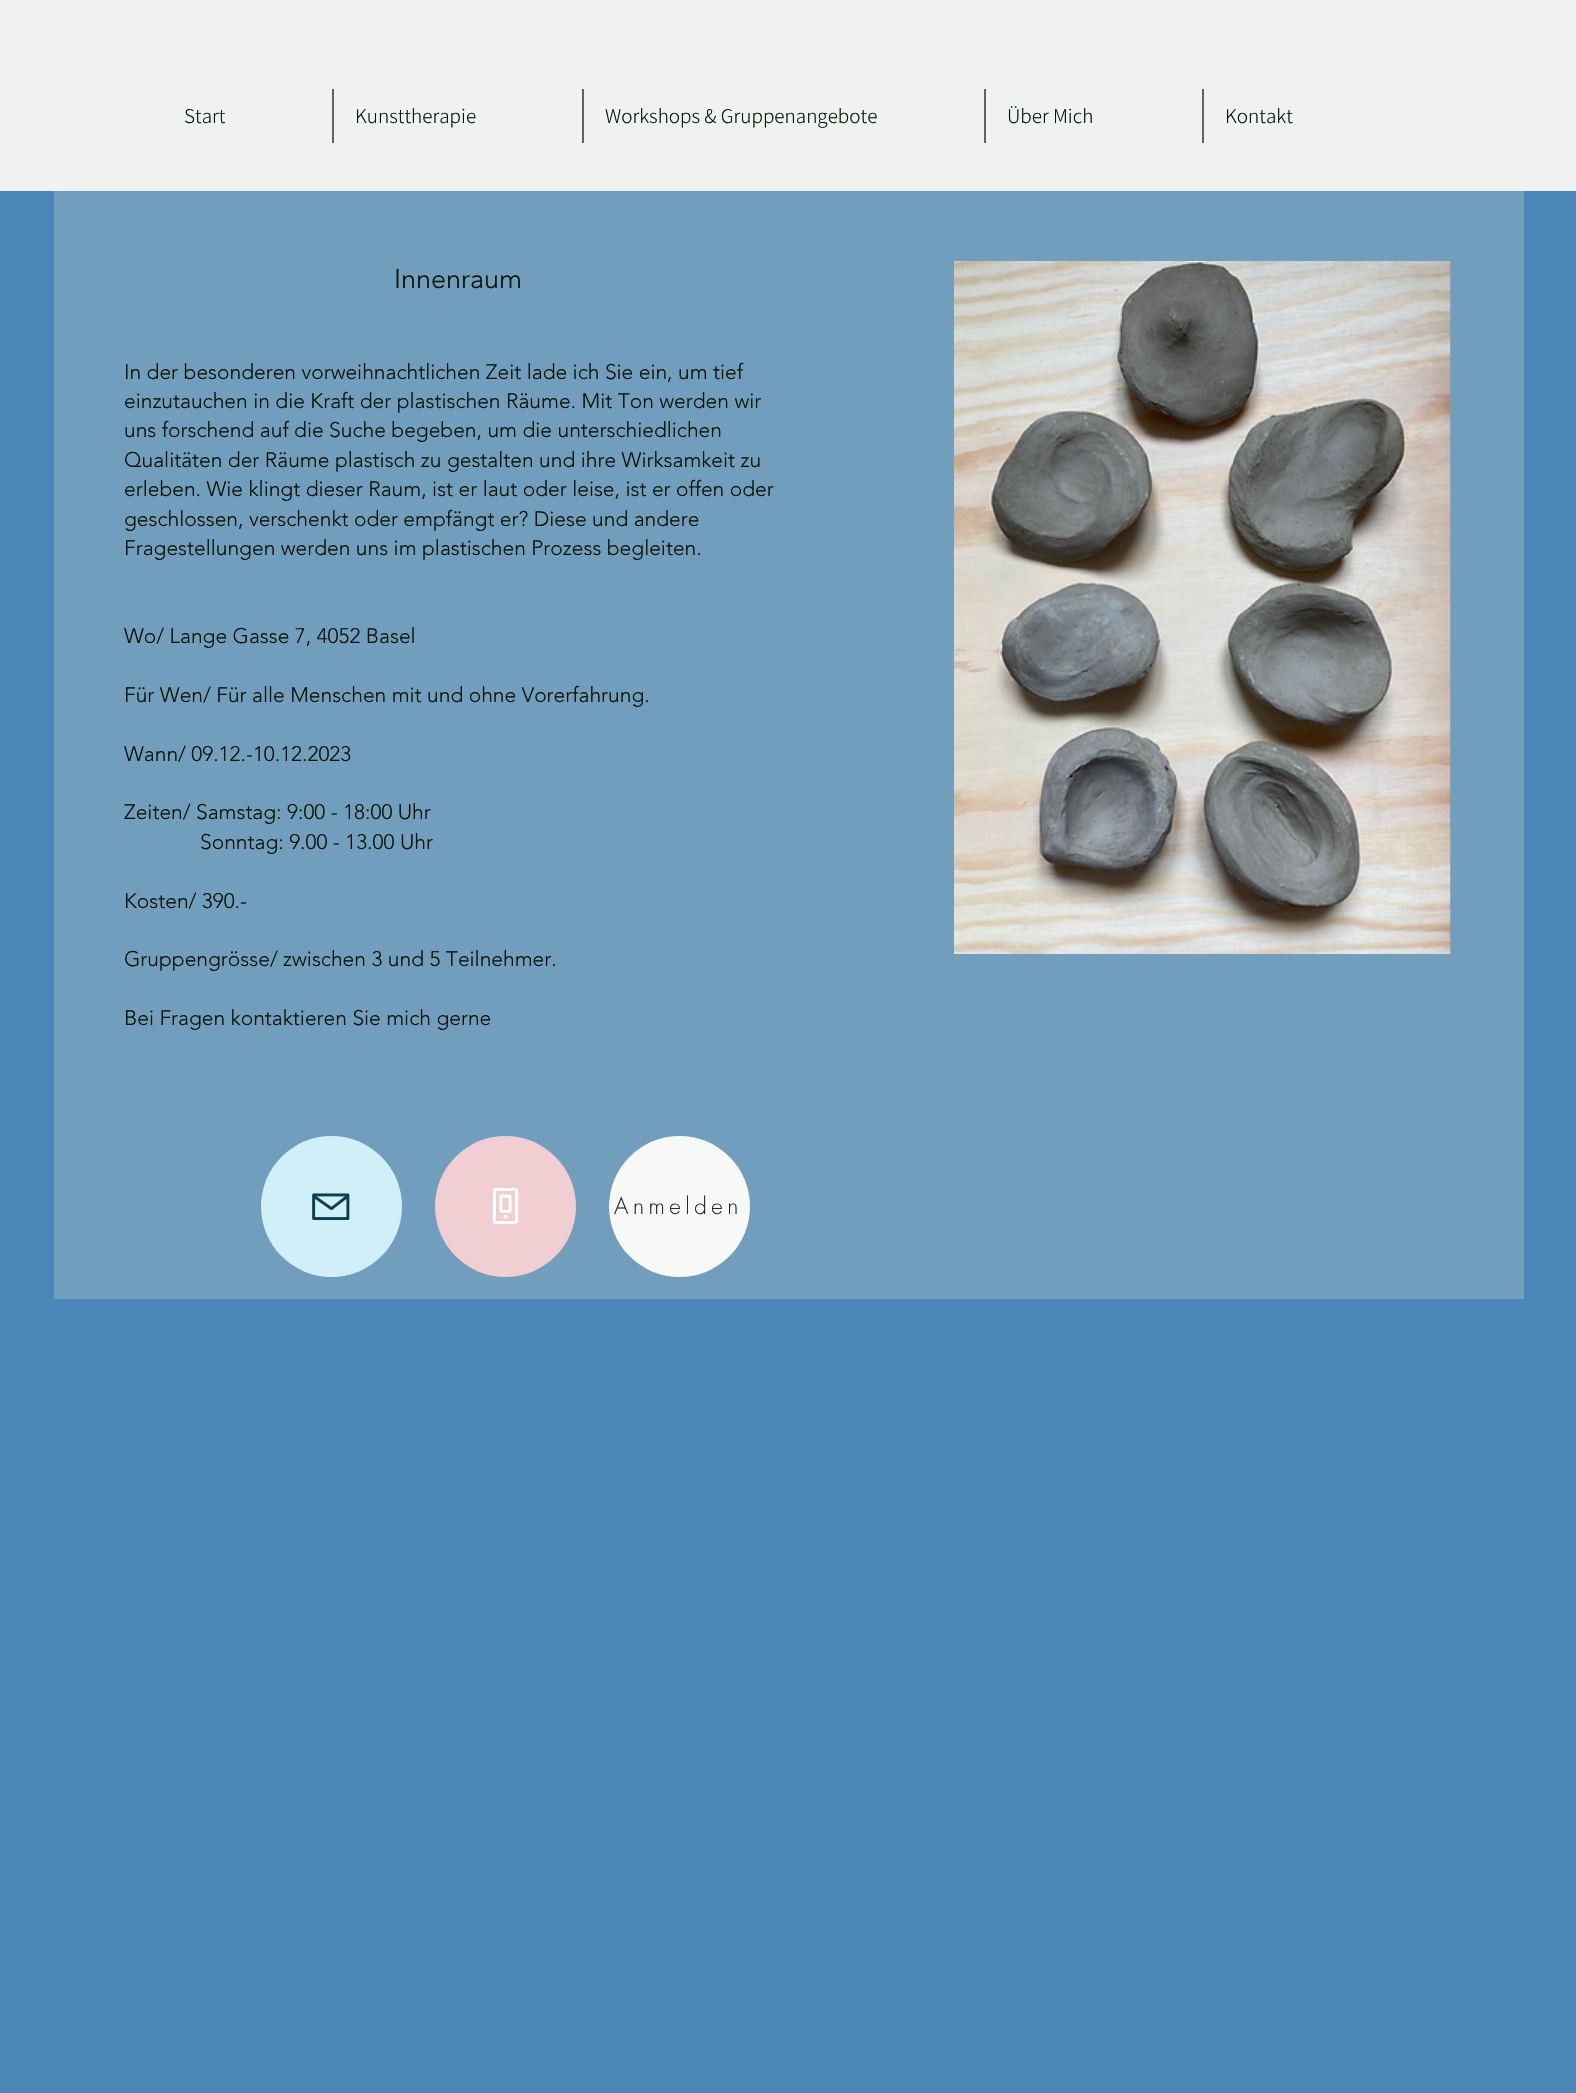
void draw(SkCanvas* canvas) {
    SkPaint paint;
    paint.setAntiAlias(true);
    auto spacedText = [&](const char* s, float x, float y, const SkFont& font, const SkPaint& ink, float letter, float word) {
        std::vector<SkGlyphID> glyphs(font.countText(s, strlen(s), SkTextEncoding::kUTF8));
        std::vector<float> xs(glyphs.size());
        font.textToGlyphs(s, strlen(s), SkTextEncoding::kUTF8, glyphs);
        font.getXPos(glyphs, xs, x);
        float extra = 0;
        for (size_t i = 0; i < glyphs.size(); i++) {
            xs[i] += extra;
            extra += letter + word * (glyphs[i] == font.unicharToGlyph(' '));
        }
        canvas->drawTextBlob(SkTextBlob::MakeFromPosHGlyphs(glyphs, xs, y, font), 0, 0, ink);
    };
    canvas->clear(0xFF4C87B9);
    paint.setColor(0xFFF0F2F2);
    canvas->drawRect(SkRect::MakeXYWH(0, 0, 1576, 191), paint);
    SkFont font1(fontMgr->matchFamilyStyle("Assistant", SkFontStyle(300, SkFontStyle::kNormal_Width, SkFontStyle::kUpright_Slant)), 21);
    font1.setSubpixel(true);
    paint.setColor(0xFF091405);
    canvas->drawString("Start", 184, 123, font1, paint);
    paint.setColor(0xFF626462);
    canvas->drawRect(SkRect::MakeXYWH(332, 89, 2, 54), paint);
    paint.setColor(0xFF091405);
    canvas->drawString("Kunsttherapie", 355, 123, font1, paint);
    paint.setColor(0xFF626462);
    canvas->drawRect(SkRect::MakeXYWH(582, 89, 2, 54), paint);
    paint.setColor(0xFF091405);
    canvas->drawString("Workshops & Gruppenangebote", 605, 123, font1, paint);
    paint.setColor(0xFF626462);
    canvas->drawRect(SkRect::MakeXYWH(984, 89, 2, 54), paint);
    paint.setColor(0xFF091405);
    canvas->drawString("Über Mich", 1007, 123, font1, paint);
    paint.setColor(0xFF626462);
    canvas->drawRect(SkRect::MakeXYWH(1202, 89, 2, 54), paint);
    paint.setColor(0xFF091405);
    canvas->drawString("Kontakt", 1225, 123, font1, paint);
    paint.setColor(0xFF719EBC);
    canvas->drawRect(SkRect::MakeXYWH(54, 191, 1470, 1108), paint);
    SkFont font2(fontMgr->matchFamilyStyle("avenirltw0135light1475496", SkFontStyle(300, SkFontStyle::kNormal_Width, SkFontStyle::kUpright_Slant)), 27);
    font2.setSubpixel(true);
    paint.setColor(0xFF091405);
    canvas->drawString("Innenraum", 394, 288, font2, paint);
    SkFont font3(fontMgr->matchFamilyStyle("avenirltw0135light1475496", SkFontStyle(300, SkFontStyle::kNormal_Width, SkFontStyle::kUpright_Slant)), 21);
    font3.setSubpixel(true);
    canvas->drawString("In der besonderen vorweihnachtlichen Zeit lade ich Sie ein, um tief", 124, 379, font3, paint);
    canvas->drawString("einzutauchen in die Kraft der plastischen Räume. Mit Ton werden wir", 124, 408, font3, paint);
    canvas->drawString("uns forschend auf die Suche begeben, um die unterschiedlichen", 124, 437, font3, paint);
    canvas->drawString("Qualitäten der Räume plastisch zu gestalten und ihre Wirksamkeit zu", 124, 467, font3, paint);
    canvas->drawString("erleben. Wie klingt dieser Raum, ist er laut oder leise, ist er offen oder", 124, 496, font3, paint);
    canvas->drawString("geschlossen, verschenkt oder empfängt er? Diese und andere", 124, 526, font3, paint);
    canvas->drawString("Fragestellungen werden uns im plastischen Prozess begleiten.", 124, 555, font3, paint);
    canvas->drawString("Wo/ Lange Gasse 7, 4052 Basel", 124, 643, font3, paint);
    canvas->drawString("Für Wen/ Für alle Menschen mit und ohne Vorerfahrung.", 124, 702, font3, paint);
    canvas->drawString("Wann/ 09.12.-10.12.2023", 124, 761, font3, paint);
    canvas->drawString("Zeiten/ Samstag: 9:00 - 18:00 Uhr", 124, 819, font3, paint);
    canvas->drawString("Sonntag: 9.00 - 13.00 Uhr", 200, 849, font3, paint);
    canvas->drawString("Kosten/ 390.-", 124, 908, font3, paint);
    canvas->drawString("Gruppengrösse/ zwischen 3 und 5 Teilnehmer.", 124, 966, font3, paint);
    canvas->drawString("Bei Fragen kontaktieren Sie mich gerne", 124, 1025, font3, paint);
    canvas->drawImageRect(SkImages::DeferredFromEncodedData(SkData::MakeFromFileName("img1.png")), SkRect::MakeXYWH(954, 261, 497, 693), SkSamplingOptions());
    paint.setColor(0xFFD1EFF9);
    canvas->drawCircle(331.5f, 1206.5f, 70.5f, paint);
    canvas->drawImageRect(SkImages::DeferredFromEncodedData(SkData::MakeFromFileName("img2.png")), SkRect::MakeXYWH(312, 1193, 38, 27), SkSamplingOptions());
    paint.setColor(0xFFF0CED1);
    canvas->drawCircle(505.5f, 1206.5f, 70.5f, paint);
    canvas->drawImageRect(SkImages::DeferredFromEncodedData(SkData::MakeFromFileName("img3.png")), SkRect::MakeXYWH(492, 1188, 27, 36), SkSamplingOptions());
    paint.setColor(0xFFF6F9F5);
    canvas->drawCircle(679.5f, 1206.5f, 70.5f, paint);
    SkFont font4(fontMgr->matchFamilyStyle("futura", SkFontStyle(300, SkFontStyle::kNormal_Width, SkFontStyle::kUpright_Slant)), 22.5f);
    font4.setSubpixel(true);
    paint.setColor(0xFF282626);
    spacedText("Anmelden", 614, 1214, font4, paint, 4.5f, 0);
}
